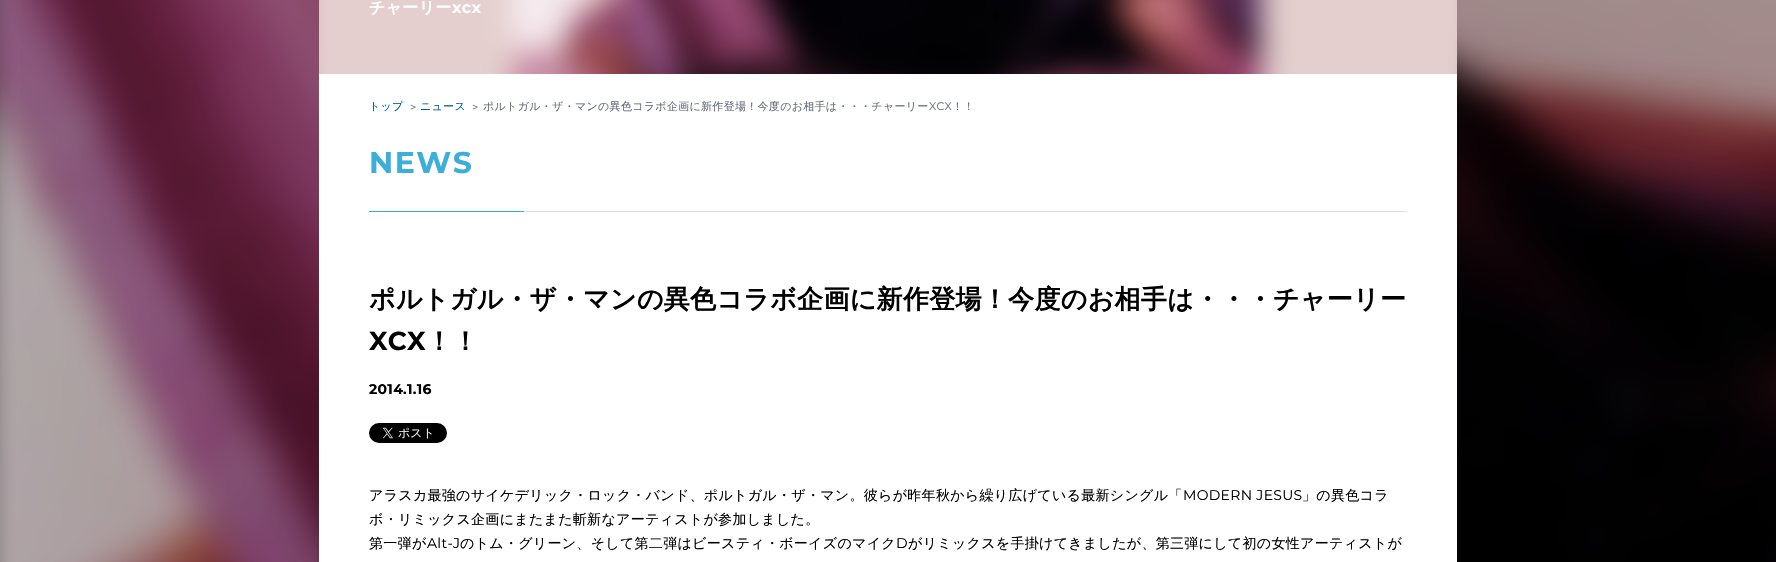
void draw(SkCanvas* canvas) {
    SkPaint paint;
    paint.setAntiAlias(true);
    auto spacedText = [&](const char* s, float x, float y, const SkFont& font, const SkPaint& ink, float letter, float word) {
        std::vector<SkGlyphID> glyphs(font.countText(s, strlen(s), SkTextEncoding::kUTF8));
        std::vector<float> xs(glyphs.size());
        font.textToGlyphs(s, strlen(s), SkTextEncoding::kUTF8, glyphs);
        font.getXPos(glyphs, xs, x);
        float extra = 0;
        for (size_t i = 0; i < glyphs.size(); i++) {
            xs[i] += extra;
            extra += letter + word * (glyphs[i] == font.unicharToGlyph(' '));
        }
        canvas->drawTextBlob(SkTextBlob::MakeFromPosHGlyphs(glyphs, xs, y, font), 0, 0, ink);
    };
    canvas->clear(0xFFFFFFFF);
    canvas->drawImageRect(SkImages::DeferredFromEncodedData(SkData::MakeFromFileName("img1.png")), SkRect::MakeXYWH(0, 0, 17, 562), SkSamplingOptions());
    canvas->drawImageRect(SkImages::DeferredFromEncodedData(SkData::MakeFromFileName("img2.png")), SkRect::MakeXYWH(0, 0, 1776, 562), SkSamplingOptions());
    canvas->drawImageRect(SkImages::DeferredFromEncodedData(SkData::MakeFromFileName("img3.png")), SkRect::MakeXYWH(319, 0, 1138, 74), SkSamplingOptions());
    SkFont font1(fontMgr->matchFamilyStyle("WenQuanYi Zen Hei", SkFontStyle::Bold()), 16);
    font1.setSubpixel(true);
    paint.setColor(0xFFFFFFFF);
    spacedText("チャーリー", 369, 13, font1, paint, 0.3f, 0);
    SkFont font2(fontMgr->matchFamilyStyle("Montserrat", SkFontStyle::Bold()), 16);
    font2.setSubpixel(true);
    spacedText("xcx", 452, 13, font2, paint, 0.3f, 0);
    canvas->drawRect(SkRect::MakeXYWH(319, 74, 1138, 488), paint);
    SkFont font3(fontMgr->matchFamilyStyle("WenQuanYi Zen Hei", SkFontStyle(500, SkFontStyle::kNormal_Width, SkFontStyle::kUpright_Slant)), 11);
    font3.setSubpixel(true);
    paint.setColor(0xFF0059A7);
    spacedText("トップ", 369, 110, font3, paint, 0.3f, 0);
    SkFont font4(fontMgr->matchFamilyStyle("Montserrat", SkFontStyle::Normal()), 11);
    font4.setSubpixel(true);
    paint.setColor(0xFF656D78);
    spacedText(">", 410, 111, font4, paint, 0.3f, 0);
    paint.setColor(0xFF0059A7);
    spacedText("ニュース", 420, 110, font3, paint, 0.3f, 0);
    paint.setColor(0xFF656D78);
    spacedText(">", 472, 111, font4, paint, 0.3f, 0);
    spacedText("ポルトガル・ザ・マンの異色コラボ企画に新作登場！今度のお相手は・・・チャーリー", 483, 110, font3, paint, 0.3f, 0);
    spacedText("XCX", 929, 110, font4, paint, 0.3f, 0);
    spacedText("！！", 952, 110, font3, paint, 0.3f, 0);
    paint.setColor(0xFFE0E0E0);
    canvas->drawRect(SkRect::MakeXYWH(524, 211, 883, 1), paint);
    SkFont font5(fontMgr->matchFamilyStyle("Montserrat", SkFontStyle::Bold()), 30);
    font5.setSubpixel(true);
    paint.setColor(0xFF3BAFDA);
    spacedText("NEWS", 369, 173, font5, paint, 1.5f, 0);
    canvas->drawRect(SkRect::MakeXYWH(369, 211, 155, 1), paint);
    SkFont font6(fontMgr->matchFamilyStyle("WenQuanYi Zen Hei", SkFontStyle::Bold()), 26);
    font6.setSubpixel(true);
    paint.setColor(0xFF000000);
    spacedText("ポルトガル・ザ・マンの異色コラボ企画に新作登場！今度のお相手は・・・チャーリー", 369, 308, font6, paint, 0.3f, 0);
    SkFont font7(fontMgr->matchFamilyStyle("Montserrat", SkFontStyle::Bold()), 26);
    font7.setSubpixel(true);
    spacedText("XCX", 369, 350, font7, paint, 0.3f, 0);
    spacedText("！！", 426, 350, font6, paint, 0.3f, 0);
    SkFont font8(fontMgr->matchFamilyStyle("Montserrat", SkFontStyle::Bold()), 14);
    font8.setSubpixel(true);
    spacedText("2014.1.16", 369, 394, font8, paint, 0.3f, 0);
    canvas->drawImageRect(SkImages::DeferredFromEncodedData(SkData::MakeFromFileName("img4.png")), SkRect::MakeXYWH(369, 423, 78, 20), SkSamplingOptions());
    SkFont font9(fontMgr->matchFamilyStyle("WenQuanYi Zen Hei", SkFontStyle(500, SkFontStyle::kNormal_Width, SkFontStyle::kUpright_Slant)), 14);
    font9.setSubpixel(true);
    spacedText("アラスカ最強のサイケデリック・ロック・バンド、ポルトガル・ザ・マン。彼らが昨年秋から繰り広げている最新シングル「", 369, 500, font9, paint, 0.3f, 0);
    SkFont font10(fontMgr->matchFamilyStyle("Montserrat", SkFontStyle::Normal()), 14);
    font10.setSubpixel(true);
    spacedText("MODERN JESUS", 1183, 500, font10, paint, 0.3f, 0);
    spacedText("」の異色コラ", 1302, 500, font9, paint, 0.3f, 0);
    spacedText("ボ・リミックス企画にまたまた斬新なアーティストが参加しました。", 369, 524, font9, paint, 0.3f, 0);
    spacedText("第一弾が", 369, 548, font9, paint, 0.3f, 0);
    spacedText("Alt-J", 427, 548, font10, paint, 0.3f, 0);
    spacedText("のトム・グリーン、そして第二弾はビースティ・ボーイズのマイク", 460, 548, font9, paint, 0.3f, 0);
    spacedText("D", 896, 548, font10, paint, 0.3f, 0);
    spacedText("がリミックスを手掛けてきましたが、第三弾にして初の女性アーティストが", 908, 548, font9, paint, 0.3f, 0);
}
